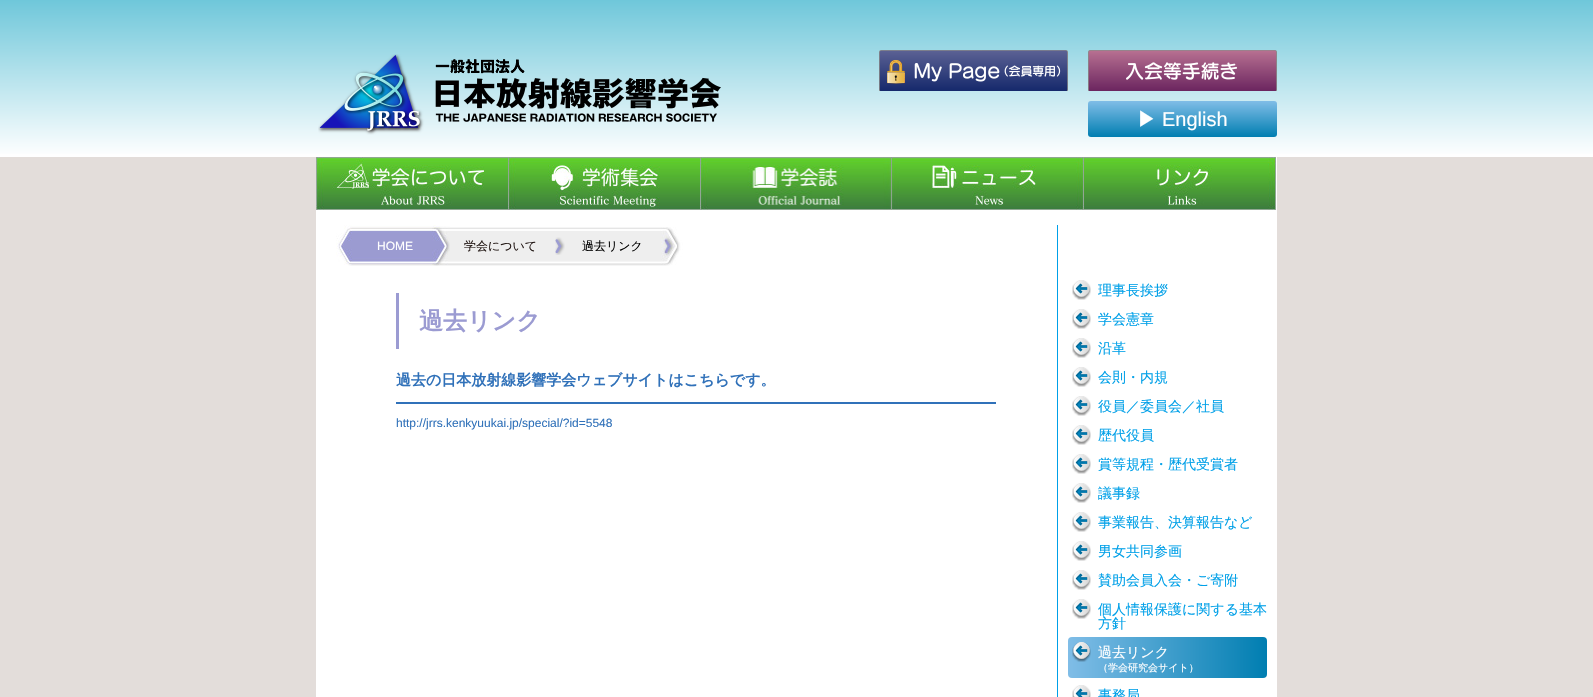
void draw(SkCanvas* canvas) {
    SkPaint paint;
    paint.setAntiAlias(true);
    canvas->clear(0xFFFFFFFF);
    {
        const SkColor colors[] = {0xFF6FC7DA, 0xFFFFFFFF};
        const float stops[] = {0, 1};
        const SkPoint ends[] = {{797, 0}, {797, 157}};
        paint.setShader(SkGradientShader::MakeLinear(ends, colors, stops, 2, SkTileMode::kClamp));
        paint.setAlpha(255);
    }
    canvas->drawRect(SkRect::MakeXYWH(0, 0, 1593, 154), paint);
    canvas->drawImageRect(SkImages::DeferredFromEncodedData(SkData::MakeFromFileName("img1.png")), SkRect::MakeXYWH(318, 54, 403, 81), SkSamplingOptions());
    canvas->drawImageRect(SkImages::DeferredFromEncodedData(SkData::MakeFromFileName("img2.png")), SkRect::MakeXYWH(879, 50, 189, 41), SkSamplingOptions());
    canvas->drawImageRect(SkImages::DeferredFromEncodedData(SkData::MakeFromFileName("img3.png")), SkRect::MakeXYWH(1088, 50, 189, 41), SkSamplingOptions());
    {
        const SkColor colors[] = {0xFF80BDE7, 0xFF007EB1};
        const float stops[] = {0, 1};
        const SkPoint ends[] = {{1183, 101}, {1183, 137}};
        paint.setShader(SkGradientShader::MakeLinear(ends, colors, stops, 2, SkTileMode::kClamp));
        paint.setAlpha(255);
    }
    canvas->drawRoundRect(SkRect::MakeXYWH(1088, 101, 189, 36), 3, 3, paint);
    SkFont font1(fontMgr->matchFamilyStyle("WenQuanYi Zen Hei", SkFontStyle(500, SkFontStyle::kNormal_Width, SkFontStyle::kUpright_Slant)), 20);
    font1.setSubpixel(true);
    paint.setShader(nullptr);
    paint.setColor(0xFFFFFFFF);
    canvas->drawString("▶", 1137, 126, font1, paint);
    SkFont font2(fontMgr->matchFamilyStyle("Liberation Sans", SkFontStyle::Normal()), 20);
    font2.setSubpixel(true);
    canvas->drawString("English", 1162, 126, font2, paint);
    paint.setColor(0xFFE3DDDA);
    canvas->drawRect(SkRect::MakeXYWH(0, 157, 1593, 540), paint);
    paint.setColor(0xFFFFFFFF);
    canvas->drawRect(SkRect::MakeXYWH(316, 157, 961, 540), paint);
    canvas->drawImageRect(SkImages::DeferredFromEncodedData(SkData::MakeFromFileName("img4.png")), SkRect::MakeXYWH(316, 157, 192, 53), SkSamplingOptions());
    canvas->drawImageRect(SkImages::DeferredFromEncodedData(SkData::MakeFromFileName("img5.png")), SkRect::MakeXYWH(508, 157, 192, 53), SkSamplingOptions());
    canvas->drawImageRect(SkImages::DeferredFromEncodedData(SkData::MakeFromFileName("img6.png")), SkRect::MakeXYWH(700, 157, 192, 53), SkSamplingOptions());
    canvas->drawImageRect(SkImages::DeferredFromEncodedData(SkData::MakeFromFileName("img7.png")), SkRect::MakeXYWH(892, 157, 192, 53), SkSamplingOptions());
    canvas->drawImageRect(SkImages::DeferredFromEncodedData(SkData::MakeFromFileName("img8.png")), SkRect::MakeXYWH(1084, 157, 192, 53), SkSamplingOptions());
    canvas->drawImageRect(SkImages::DeferredFromEncodedData(SkData::MakeFromFileName("img9.png")), SkRect::MakeXYWH(450, 227, 211, 39), SkSamplingOptions());
    canvas->drawImageRect(SkImages::DeferredFromEncodedData(SkData::MakeFromFileName("img10.png")), SkRect::MakeXYWH(336, 225, 114, 41), SkSamplingOptions());
    SkFont font3(fontMgr->matchFamilyStyle("Liberation Sans", SkFontStyle::Normal()), 12);
    font3.setSubpixel(true);
    canvas->drawString("HOME", 377, 250, font3, paint);
    canvas->drawImageRect(SkImages::DeferredFromEncodedData(SkData::MakeFromFileName("img11.png")), SkRect::MakeXYWH(555, 237, 10, 18), SkSamplingOptions());
    SkFont font4(fontMgr->matchFamilyStyle("WenQuanYi Zen Hei", SkFontStyle(500, SkFontStyle::kNormal_Width, SkFontStyle::kUpright_Slant)), 12);
    font4.setSubpixel(true);
    paint.setColor(0xFF231815);
    canvas->drawString("学会について", 464, 250, font4, paint);
    canvas->drawImageRect(SkImages::DeferredFromEncodedData(SkData::MakeFromFileName("img12.png")), SkRect::MakeXYWH(661, 227, 22, 39), SkSamplingOptions());
    paint.setColor(0xFF000000);
    canvas->drawString("過去リンク", 582, 250, font4, paint);
    paint.setColor(0xFF9B9BD2);
    canvas->drawRect(SkRect::MakeXYWH(396, 293, 3, 56), paint);
    SkFont font5(fontMgr->matchFamilyStyle("WenQuanYi Zen Hei", SkFontStyle::Bold()), 24);
    font5.setSubpixel(true);
    canvas->drawString("過去リンク", 419, 329, font5, paint);
    paint.setColor(0xFF3071B9);
    canvas->drawRect(SkRect::MakeXYWH(396, 402, 600, 2), paint);
    SkFont font6(fontMgr->matchFamilyStyle("WenQuanYi Zen Hei", SkFontStyle::Bold()), 15);
    font6.setSubpixel(true);
    canvas->drawString("過去の日本放射線影響学会ウェブサイトはこちらです。", 396, 385, font6, paint);
    canvas->drawString("http://jrrs.kenkyuukai.jp/special/?id=5548", 396, 427, font3, paint);
    paint.setColor(0xFF00A0E8);
    canvas->drawRect(SkRect::MakeXYWH(1057, 225, 1, 472), paint);
    canvas->drawImageRect(SkImages::DeferredFromEncodedData(SkData::MakeFromFileName("img13.png")), SkRect::MakeXYWH(1072, 280, 19, 20), SkSamplingOptions());
    SkFont font7(fontMgr->matchFamilyStyle("WenQuanYi Zen Hei", SkFontStyle(500, SkFontStyle::kNormal_Width, SkFontStyle::kUpright_Slant)), 14);
    font7.setSubpixel(true);
    canvas->drawString("理事長挨拶", 1098, 295, font7, paint);
    canvas->drawImageRect(SkImages::DeferredFromEncodedData(SkData::MakeFromFileName("img13.png")), SkRect::MakeXYWH(1072, 309, 19, 20), SkSamplingOptions());
    canvas->drawString("学会憲章", 1098, 324, font7, paint);
    canvas->drawImageRect(SkImages::DeferredFromEncodedData(SkData::MakeFromFileName("img13.png")), SkRect::MakeXYWH(1072, 338, 19, 20), SkSamplingOptions());
    canvas->drawString("沿革", 1098, 353, font7, paint);
    canvas->drawImageRect(SkImages::DeferredFromEncodedData(SkData::MakeFromFileName("img13.png")), SkRect::MakeXYWH(1072, 367, 19, 20), SkSamplingOptions());
    canvas->drawString("会則・内規", 1098, 382, font7, paint);
    canvas->drawImageRect(SkImages::DeferredFromEncodedData(SkData::MakeFromFileName("img13.png")), SkRect::MakeXYWH(1072, 396, 19, 20), SkSamplingOptions());
    canvas->drawString("役員／委員会／社員", 1098, 411, font7, paint);
    canvas->drawImageRect(SkImages::DeferredFromEncodedData(SkData::MakeFromFileName("img13.png")), SkRect::MakeXYWH(1072, 425, 19, 20), SkSamplingOptions());
    canvas->drawString("歴代役員", 1098, 440, font7, paint);
    canvas->drawImageRect(SkImages::DeferredFromEncodedData(SkData::MakeFromFileName("img13.png")), SkRect::MakeXYWH(1072, 454, 19, 20), SkSamplingOptions());
    canvas->drawString("賞等規程・歴代受賞者", 1098, 469, font7, paint);
    canvas->drawImageRect(SkImages::DeferredFromEncodedData(SkData::MakeFromFileName("img13.png")), SkRect::MakeXYWH(1072, 483, 19, 20), SkSamplingOptions());
    canvas->drawString("議事録", 1098, 498, font7, paint);
    canvas->drawImageRect(SkImages::DeferredFromEncodedData(SkData::MakeFromFileName("img13.png")), SkRect::MakeXYWH(1072, 512, 19, 20), SkSamplingOptions());
    canvas->drawString("事業報告、決算報告など", 1098, 527, font7, paint);
    canvas->drawImageRect(SkImages::DeferredFromEncodedData(SkData::MakeFromFileName("img13.png")), SkRect::MakeXYWH(1072, 541, 19, 20), SkSamplingOptions());
    canvas->drawString("男女共同参画", 1098, 556, font7, paint);
    canvas->drawImageRect(SkImages::DeferredFromEncodedData(SkData::MakeFromFileName("img13.png")), SkRect::MakeXYWH(1072, 570, 19, 20), SkSamplingOptions());
    canvas->drawString("賛助会員入会・ご寄附", 1098, 585, font7, paint);
    canvas->drawImageRect(SkImages::DeferredFromEncodedData(SkData::MakeFromFileName("img13.png")), SkRect::MakeXYWH(1072, 599, 19, 20), SkSamplingOptions());
    canvas->drawString("個人情報保護に関する基本", 1098, 614, font7, paint);
    canvas->drawString("方針", 1098, 628, font7, paint);
    {
        const SkColor colors[] = {0xFF80BDE7, 0xFF007EB1};
        const float stops[] = {0, 1};
        const SkPoint ends[] = {{1068, 658}, {1267, 658}};
        paint.setShader(SkGradientShader::MakeLinear(ends, colors, stops, 2, SkTileMode::kClamp));
        paint.setAlpha(255);
    }
    canvas->drawRoundRect(SkRect::MakeXYWH(1068, 637, 199, 41), 4, 4, paint);
    canvas->drawImageRect(SkImages::DeferredFromEncodedData(SkData::MakeFromFileName("img14.png")), SkRect::MakeXYWH(1072, 642, 19, 20), SkSamplingOptions());
    paint.setShader(nullptr);
    paint.setColor(0xFFFFFFFF);
    canvas->drawString("過去リンク", 1098, 657, font7, paint);
    SkFont font8(fontMgr->matchFamilyStyle("WenQuanYi Zen Hei", SkFontStyle(500, SkFontStyle::kNormal_Width, SkFontStyle::kUpright_Slant)), 10);
    font8.setSubpixel(true);
    canvas->drawString("（学会研究会サイト）", 1098, 671, font8, paint);
    canvas->drawImageRect(SkImages::DeferredFromEncodedData(SkData::MakeFromFileName("img15.png")), SkRect::MakeXYWH(1072, 685, 19, 12), SkSamplingOptions());
    paint.setColor(0xFF00A0E8);
    canvas->drawString("事務局", 1098, 700, font7, paint);
}
